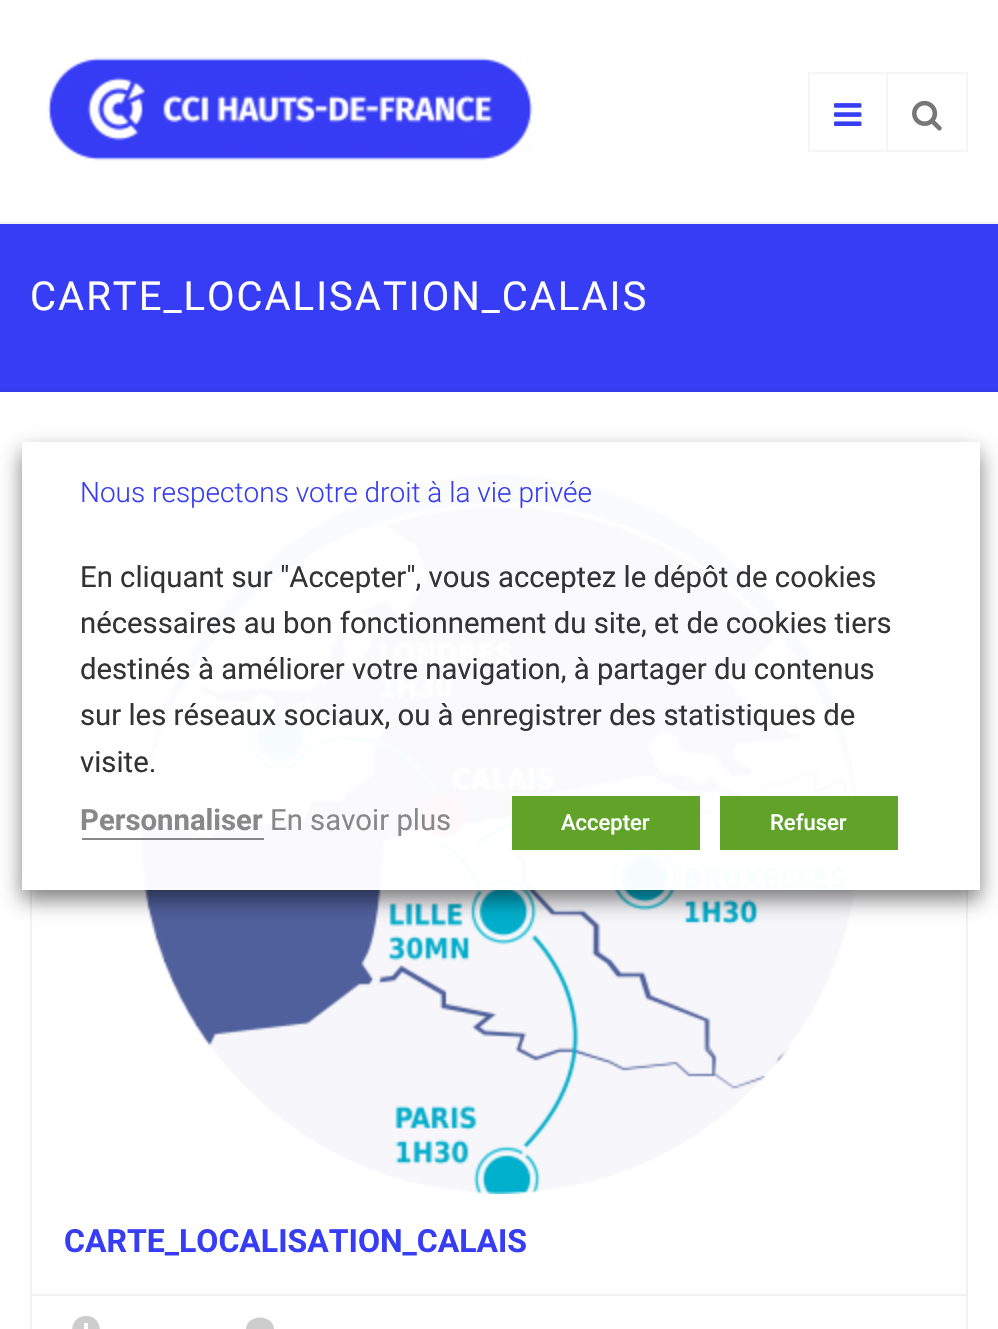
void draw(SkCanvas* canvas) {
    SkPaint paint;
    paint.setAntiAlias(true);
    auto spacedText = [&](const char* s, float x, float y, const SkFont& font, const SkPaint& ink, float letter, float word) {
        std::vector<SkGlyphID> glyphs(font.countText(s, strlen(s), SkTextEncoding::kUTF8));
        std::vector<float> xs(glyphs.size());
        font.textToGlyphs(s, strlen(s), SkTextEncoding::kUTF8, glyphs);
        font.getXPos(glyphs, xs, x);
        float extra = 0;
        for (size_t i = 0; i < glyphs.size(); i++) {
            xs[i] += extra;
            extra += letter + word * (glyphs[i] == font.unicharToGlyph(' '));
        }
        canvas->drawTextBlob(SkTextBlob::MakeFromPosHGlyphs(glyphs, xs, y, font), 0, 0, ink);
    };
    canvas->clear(0xFFFFFFFF);
    paint.setColor(0xFFF2F2F2);
    canvas->drawRect(SkRect::MakeXYWH(0, 222, 998, 2), paint);
    canvas->drawImageRect(SkImages::DeferredFromEncodedData(SkData::MakeFromFileName("img1.png")), SkRect::MakeXYWH(47, 57, 486, 104), SkSamplingOptions());
    paint.setStyle(SkPaint::kStroke_Style);
    paint.setStrokeWidth(2);
    paint.setColor(0xFFF6F3F3);
    canvas->drawRect(SkRect::MakeXYWH(809, 73, 78, 78), paint);
    canvas->drawImageRect(SkImages::DeferredFromEncodedData(SkData::MakeFromFileName("img2.png")), SkRect::MakeXYWH(834, 103, 28, 23), SkSamplingOptions());
    paint.setStyle(SkPaint::kFill_Style);
    canvas->drawRect(SkRect::MakeXYWH(888, 72, 80, 2), paint);
    canvas->drawRect(SkRect::MakeXYWH(966, 72, 2, 80), paint);
    canvas->drawRect(SkRect::MakeXYWH(888, 150, 80, 2), paint);
    canvas->drawImageRect(SkImages::DeferredFromEncodedData(SkData::MakeFromFileName("img3.png")), SkRect::MakeXYWH(912, 100, 30, 31), SkSamplingOptions());
    paint.setColor(0xFF373CF5);
    canvas->drawRect(SkRect::MakeXYWH(0, 224, 998, 166), paint);
    paint.setColor(0xFF3439E9);
    canvas->drawRect(SkRect::MakeXYWH(0, 390, 998, 2), paint);
    SkFont font1(fontMgr->matchFamilyStyle("Roboto", SkFontStyle::Normal()), 40);
    font1.setSubpixel(true);
    paint.setColor(0xFFFFFFFF);
    spacedText("CARTE_LOCALISATION_CALAIS", 30, 310, font1, paint, 2, 0);
    paint.setColor(0xFFF0F1F5);
    canvas->drawRect(SkRect::MakeXYWH(30, 472, 938, 2), paint);
    canvas->drawRect(SkRect::MakeXYWH(966, 472, 2, 857), paint);
    canvas->drawRect(SkRect::MakeXYWH(30, 472, 2, 857), paint);
    canvas->drawImageRect(SkImages::DeferredFromEncodedData(SkData::MakeFromFileName("img4.png")), SkRect::MakeXYWH(140, 474, 720, 720), SkSamplingOptions());
    SkFont font2(fontMgr->matchFamilyStyle("Roboto", SkFontStyle::Bold()), 32);
    font2.setSubpixel(true);
    paint.setColor(0xFF373CF5);
    canvas->drawString("CARTE_LOCALISATION_CALAIS", 64, 1252, font2, paint);
    paint.setColor(0xFFF0F1F5);
    canvas->drawRect(SkRect::MakeXYWH(32, 1294, 934, 2), paint);
    paint.setColor(0xFFCDCDCD);
    canvas->drawPath(SkPathBuilder().moveTo(86, 1316).cubicTo(67.5f, 1316, 67.5f, 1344, 86, 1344).cubicTo(104.5f, 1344, 104.5f, 1316, 86, 1316).close().moveTo(90, 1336.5f).lineTo(84, 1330.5f).lineTo(84, 1323).lineTo(88, 1323).lineTo(88, 1329).lineTo(92.5f, 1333.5f).close().detach(), paint);
    canvas->drawImageRect(SkImages::DeferredFromEncodedData(SkData::MakeFromFileName("img5.png")), SkRect::MakeXYWH(246, 1317, 28, 12), SkSamplingOptions());
    canvas->save();
    canvas->clipPath(SkPathBuilder(SkPathFillType::kEvenOdd).moveTo(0, 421).lineTo(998, 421).lineTo(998, 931).lineTo(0, 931).close().moveTo(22, 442).lineTo(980, 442).lineTo(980, 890).lineTo(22, 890).close().detach(), true);
    paint.setColor(0x80000000);
    paint.setMaskFilter(SkMaskFilter::MakeBlur(kNormal_SkBlurStyle, 10));
    canvas->drawRect(SkRect::MakeXYWH(22, 452, 958, 448), paint);
    paint.setMaskFilter(nullptr);
    canvas->restore();
    paint.setColor(0xF7FFFFFF);
    canvas->drawRect(SkRect::MakeXYWH(22, 442, 958, 448), paint);
    SkFont font3(fontMgr->matchFamilyStyle("Roboto", SkFontStyle(300, SkFontStyle::kNormal_Width, SkFontStyle::kUpright_Slant)), 28);
    font3.setSubpixel(true);
    paint.setColor(0xFF373CF5);
    canvas->drawString("Nous respectons votre droit à la vie privée", 80, 502, font3, paint);
    SkFont font4(fontMgr->matchFamilyStyle("Roboto", SkFontStyle::Normal()), 29.3f);
    font4.setSubpixel(true);
    paint.setColor(0xFF333333);
    canvas->drawString("En cliquant sur \"Accepter\", vous acceptez le dépôt de cookies", 80, 587, font4, paint);
    canvas->drawString("nécessaires au bon fonctionnement du site, et de cookies tiers", 80, 633, font4, paint);
    canvas->drawString("destinés à améliorer votre navigation, à partager du contenus", 80, 679, font4, paint);
    canvas->drawString("sur les réseaux sociaux, ou à enregistrer des statistiques de", 80, 725, font4, paint);
    canvas->drawString("visite.", 80, 772, font4, paint);
    SkFont font5(fontMgr->matchFamilyStyle("Roboto", SkFontStyle::Bold()), 29.3f);
    font5.setSubpixel(true);
    paint.setColor(0xFF898888);
    canvas->drawString("Personnaliser", 80, 830, font5, paint);
    canvas->drawRect(SkRect::MakeXYWH(82, 838, 182, 2), paint);
    canvas->drawString("En savoir plus", 270, 830, font4, paint);
    paint.setColor(0xFF61A229);
    canvas->drawRect(SkRect::MakeXYWH(512, 796, 188, 54), paint);
    SkFont font6(fontMgr->matchFamilyStyle("Roboto", SkFontStyle(500, SkFontStyle::kNormal_Width, SkFontStyle::kUpright_Slant)), 22);
    font6.setSubpixel(true);
    paint.setColor(0xFFFFFFFF);
    canvas->drawString("Accepter", 561, 830, font6, paint);
    paint.setColor(0xFF61A229);
    canvas->drawRect(SkRect::MakeXYWH(720, 796, 178, 54), paint);
    paint.setColor(0xFFFFFFFF);
    canvas->drawString("Refuser", 770, 830, font6, paint);
}
